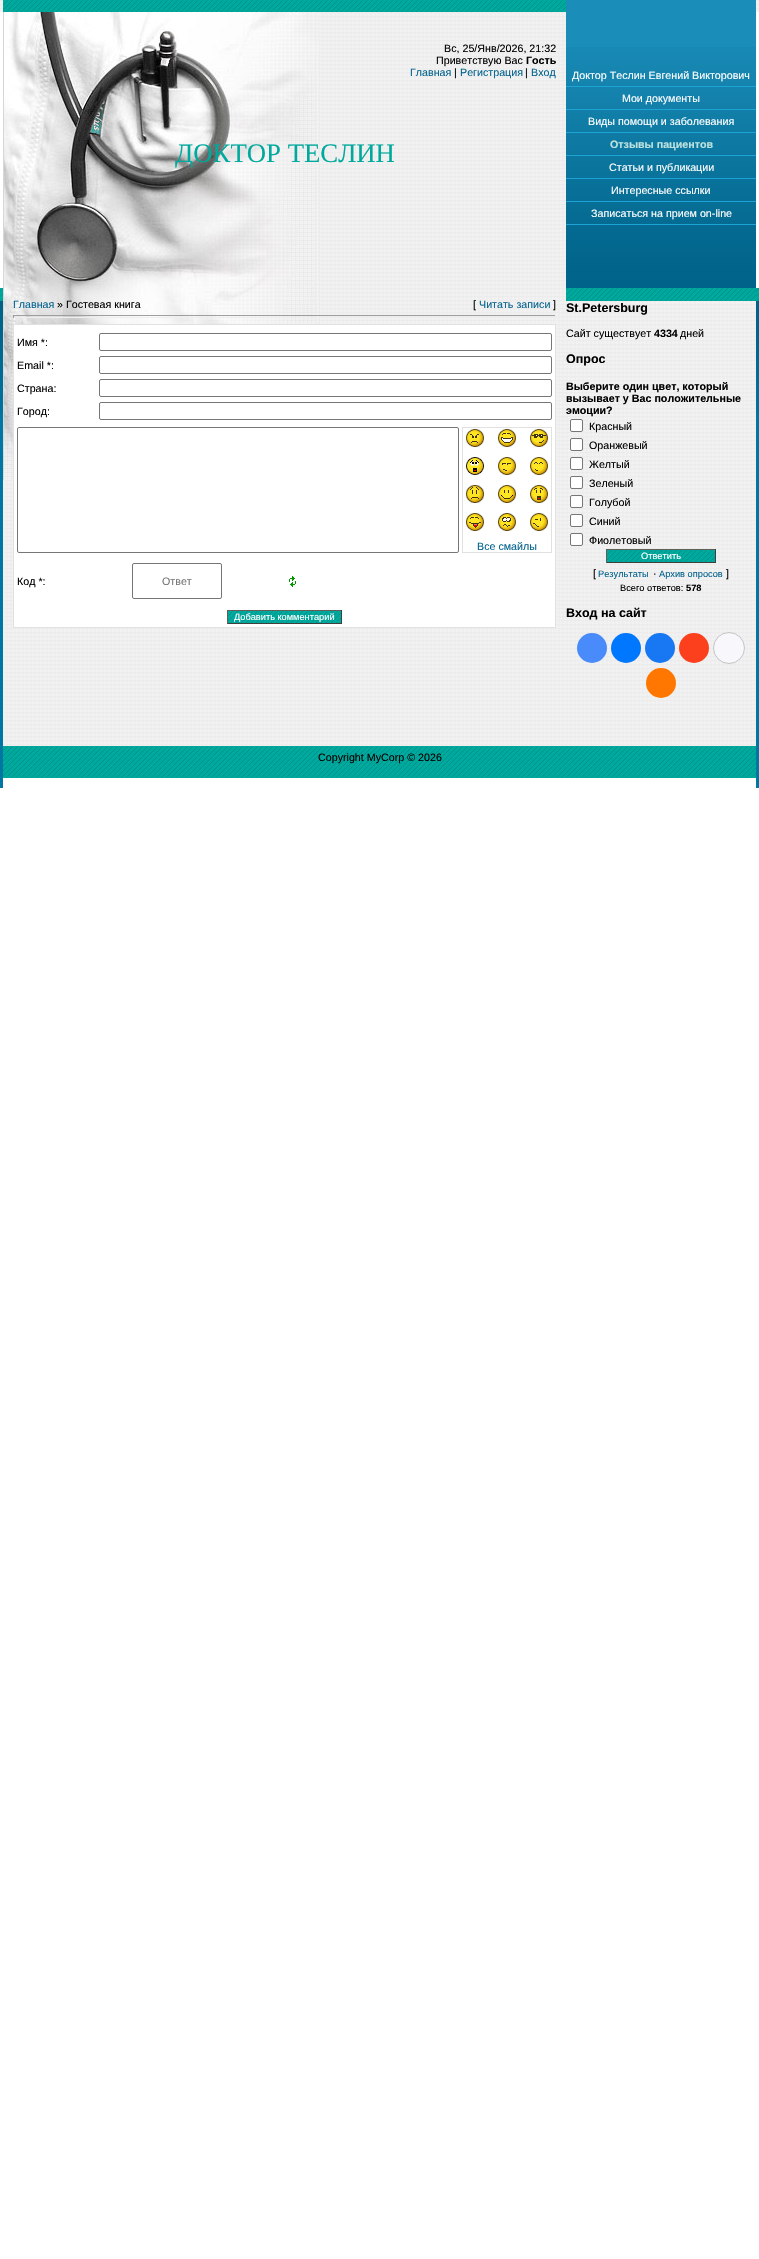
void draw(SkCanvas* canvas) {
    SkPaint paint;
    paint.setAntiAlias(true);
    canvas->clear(0xFFFFFFFF);
    canvas->drawImageRect(SkImages::DeferredFromEncodedData(SkData::MakeFromFileName("img1.png")), SkRect::MakeXYWH(0, 0, 759, 746), SkSamplingOptions());
    paint.setColor(0xFF0076A3);
    canvas->drawRect(SkRect::MakeXYWH(0, 415, 3, 373), paint);
    canvas->drawImageRect(SkImages::DeferredFromEncodedData(SkData::MakeFromFileName("img2.png")), SkRect::MakeXYWH(0, 12, 3, 403), SkSamplingOptions());
    canvas->drawImageRect(SkImages::DeferredFromEncodedData(SkData::MakeFromFileName("img3.png")), SkRect::MakeXYWH(3, 12, 317, 276), SkSamplingOptions());
    SkFont font1(fontMgr->matchFamilyStyle("Liberation Sans", SkFontStyle::Normal()), 10.7f);
    font1.setSubpixel(true);
    paint.setColor(0xFF000000);
    canvas->drawString("Вс, 25/Янв/2026, 21:32", 444, 52, font1, paint);
    canvas->drawString("Приветствую Вас", 436, 64, font1, paint);
    SkFont font2(fontMgr->matchFamilyStyle("Liberation Sans", SkFontStyle::Bold()), 10.7f);
    font2.setSubpixel(true);
    canvas->drawString("Гость", 526, 64, font2, paint);
    paint.setColor(0xFF04638E);
    canvas->drawString("Главная", 410, 76, font1, paint);
    paint.setColor(0xFF000000);
    canvas->drawString("|", 454, 76, font1, paint);
    paint.setColor(0xFF04638E);
    canvas->drawString("Регистрация", 460, 76, font1, paint);
    paint.setColor(0xFF000000);
    canvas->drawString("|", 525, 76, font1, paint);
    paint.setColor(0xFF04638E);
    canvas->drawString("Вход", 531, 76, font1, paint);
    SkFont font3(fontMgr->matchFamilyStyle("Liberation Serif", SkFontStyle::Normal()), 26.75f);
    font3.setSubpixel(true);
    paint.setColor(0xFF00A99D);
    canvas->drawString("ДОКТОР ТЕСЛИН", 175, 162, font3, paint);
    paint.setColor(0xFF0076A3);
    canvas->drawRect(SkRect::MakeXYWH(756, 415, 3, 373), paint);
    canvas->drawImageRect(SkImages::DeferredFromEncodedData(SkData::MakeFromFileName("img2.png")), SkRect::MakeXYWH(756, 12, 3, 403), SkSamplingOptions());
    canvas->drawImageRect(SkImages::DeferredFromEncodedData(SkData::MakeFromFileName("img4.png")), SkRect::MakeXYWH(3, 0, 563, 12), SkSamplingOptions());
    paint.setColor(0xFF1A8DB9);
    canvas->drawRect(SkRect::MakeXYWH(566, 0, 190, 47), paint);
    canvas->drawImageRect(SkImages::DeferredFromEncodedData(SkData::MakeFromFileName("img5.png")), SkRect::MakeXYWH(566, 47, 190, 241), SkSamplingOptions());
    paint.setColor(0xFF1EA3D6);
    canvas->drawRect(SkRect::MakeXYWH(566, 86, 190, 1), paint);
    paint.setColor(0xFFFFFFFF);
    canvas->drawString("Доктор Теслин Евгений Викторович", 572, 79, font1, paint);
    paint.setColor(0xFF1EA3D6);
    canvas->drawRect(SkRect::MakeXYWH(566, 109, 190, 1), paint);
    paint.setColor(0xFFFFFFFF);
    canvas->drawString("Мои документы", 622, 102, font1, paint);
    paint.setColor(0xFF1EA3D6);
    canvas->drawRect(SkRect::MakeXYWH(566, 132, 190, 1), paint);
    paint.setColor(0xFFFFFFFF);
    canvas->drawString("Виды помощи и заболевания", 588, 125, font1, paint);
    paint.setColor(0xFF1EA3D6);
    canvas->drawRect(SkRect::MakeXYWH(566, 155, 190, 1), paint);
    paint.setColor(0xFFBCE2DF);
    canvas->drawString("Отзывы пациентов", 610, 148, font2, paint);
    paint.setColor(0xFF1EA3D6);
    canvas->drawRect(SkRect::MakeXYWH(566, 178, 190, 1), paint);
    paint.setColor(0xFFFFFFFF);
    canvas->drawString("Cтатьи и публикации", 609, 171, font1, paint);
    paint.setColor(0xFF1EA3D6);
    canvas->drawRect(SkRect::MakeXYWH(566, 201, 190, 1), paint);
    paint.setColor(0xFFFFFFFF);
    canvas->drawString("Интересные ссылки", 611, 194, font1, paint);
    paint.setColor(0xFF1EA3D6);
    canvas->drawRect(SkRect::MakeXYWH(566, 224, 190, 1), paint);
    paint.setColor(0xFFFFFFFF);
    canvas->drawString("Записаться на прием on-line", 591, 217, font1, paint);
    canvas->drawImageRect(SkImages::DeferredFromEncodedData(SkData::MakeFromFileName("img6.png")), SkRect::MakeXYWH(3, 288, 317, 192), SkSamplingOptions());
    paint.setColor(0xFF04638E);
    canvas->drawString("Главная", 13, 308, font1, paint);
    paint.setColor(0xFF000000);
    canvas->drawString("» Гостевая книга", 57, 308, font1, paint);
    canvas->drawString("[", 473, 308, font1, paint);
    paint.setColor(0xFF04638E);
    canvas->drawString("Читать записи", 479, 308, font1, paint);
    paint.setColor(0xFF000000);
    canvas->drawString("]", 553, 308, font1, paint);
    paint.setColor(0xFF9F9F9F);
    canvas->drawRect(SkRect::MakeXYWH(13, 315, 543, 1), paint);
    paint.setColor(0xFFEEEEEE);
    canvas->drawRect(SkRect::MakeXYWH(555, 315, 1, 3), paint);
    canvas->drawRect(SkRect::MakeXYWH(13, 317, 543, 1), paint);
    paint.setColor(0xFF9F9F9F);
    canvas->drawRect(SkRect::MakeXYWH(13, 315, 1, 3), paint);
    paint.setColor(0xFFFFFFFF);
    canvas->drawRect(SkRect::MakeXYWH(13.5f, 324.5f, 542, 303), paint);
    paint.setStyle(SkPaint::kStroke_Style);
    paint.setStrokeWidth(1);
    paint.setColor(0xFFE1E1E1);
    canvas->drawRect(SkRect::MakeXYWH(13.5f, 324.5f, 542, 303), paint);
    paint.setStyle(SkPaint::kFill_Style);
    paint.setColor(0xFF000000);
    canvas->drawString("Имя *:", 17, 346, font1, paint);
    paint.setStyle(SkPaint::kStroke_Style);
    paint.setColor(0xFF767676);
    canvas->drawRoundRect(SkRect::MakeXYWH(99.5f, 333.5f, 452, 17), 1.5f, 1.5f, paint);
    paint.setStyle(SkPaint::kFill_Style);
    paint.setColor(0xFF000000);
    canvas->drawString("Email *:", 17, 369, font1, paint);
    paint.setStyle(SkPaint::kStroke_Style);
    paint.setColor(0xFF767676);
    canvas->drawRoundRect(SkRect::MakeXYWH(99.5f, 356.5f, 452, 17), 1.5f, 1.5f, paint);
    paint.setStyle(SkPaint::kFill_Style);
    paint.setColor(0xFF000000);
    canvas->drawString("Страна:", 17, 392, font1, paint);
    paint.setStyle(SkPaint::kStroke_Style);
    paint.setColor(0xFF767676);
    canvas->drawRoundRect(SkRect::MakeXYWH(99.5f, 379.5f, 452, 17), 1.5f, 1.5f, paint);
    paint.setStyle(SkPaint::kFill_Style);
    paint.setColor(0xFF000000);
    canvas->drawString("Город:", 17, 415, font1, paint);
    paint.setStyle(SkPaint::kStroke_Style);
    paint.setColor(0xFF767676);
    canvas->drawRoundRect(SkRect::MakeXYWH(99.5f, 402.5f, 452, 17), 1.5f, 1.5f, paint);
    canvas->drawRoundRect(SkRect::MakeXYWH(17.5f, 427.5f, 441, 125), 1.5f, 1.5f, paint);
    paint.setColor(0xFFE1E1E1);
    canvas->drawRect(SkRect::MakeXYWH(462.5f, 427.5f, 89, 125), paint);
    canvas->drawImageRect(SkImages::DeferredFromEncodedData(SkData::MakeFromFileName("img7.png")), SkRect::MakeXYWH(466, 429, 18, 18), SkSamplingOptions());
    canvas->drawImageRect(SkImages::DeferredFromEncodedData(SkData::MakeFromFileName("img8.png")), SkRect::MakeXYWH(498, 429, 18, 18), SkSamplingOptions());
    canvas->drawImageRect(SkImages::DeferredFromEncodedData(SkData::MakeFromFileName("img9.png")), SkRect::MakeXYWH(530, 429, 18, 18), SkSamplingOptions());
    canvas->drawImageRect(SkImages::DeferredFromEncodedData(SkData::MakeFromFileName("img10.png")), SkRect::MakeXYWH(466, 457, 18, 18), SkSamplingOptions());
    canvas->drawImageRect(SkImages::DeferredFromEncodedData(SkData::MakeFromFileName("img11.png")), SkRect::MakeXYWH(498, 457, 18, 18), SkSamplingOptions());
    canvas->drawImageRect(SkImages::DeferredFromEncodedData(SkData::MakeFromFileName("img12.png")), SkRect::MakeXYWH(530, 457, 18, 18), SkSamplingOptions());
    canvas->drawImageRect(SkImages::DeferredFromEncodedData(SkData::MakeFromFileName("img13.png")), SkRect::MakeXYWH(466, 485, 18, 18), SkSamplingOptions());
    canvas->drawImageRect(SkImages::DeferredFromEncodedData(SkData::MakeFromFileName("img14.png")), SkRect::MakeXYWH(498, 485, 18, 18), SkSamplingOptions());
    canvas->drawImageRect(SkImages::DeferredFromEncodedData(SkData::MakeFromFileName("img15.png")), SkRect::MakeXYWH(530, 485, 18, 18), SkSamplingOptions());
    canvas->drawImageRect(SkImages::DeferredFromEncodedData(SkData::MakeFromFileName("img16.png")), SkRect::MakeXYWH(466, 513, 18, 18), SkSamplingOptions());
    canvas->drawImageRect(SkImages::DeferredFromEncodedData(SkData::MakeFromFileName("img17.png")), SkRect::MakeXYWH(498, 513, 18, 18), SkSamplingOptions());
    canvas->drawImageRect(SkImages::DeferredFromEncodedData(SkData::MakeFromFileName("img18.png")), SkRect::MakeXYWH(530, 513, 18, 18), SkSamplingOptions());
    paint.setStyle(SkPaint::kFill_Style);
    paint.setColor(0xFF04638E);
    canvas->drawString("Все смайлы", 477, 550, font1, paint);
    paint.setColor(0xFF000000);
    canvas->drawString("Код *:", 17, 585, font1, paint);
    paint.setStyle(SkPaint::kStroke_Style);
    paint.setColor(0xFF767676);
    canvas->drawRoundRect(SkRect::MakeXYWH(132.5f, 563.5f, 89, 35), 1.5f, 1.5f, paint);
    paint.setStyle(SkPaint::kFill_Style);
    paint.setColor(0xFF757575);
    canvas->drawString("Ответ", 162, 585, font1, paint);
    canvas->drawImageRect(SkImages::DeferredFromEncodedData(SkData::MakeFromFileName("img19.png")), SkRect::MakeXYWH(289, 576, 7, 11), SkSamplingOptions());
    canvas->drawImageRect(SkImages::DeferredFromEncodedData(SkData::MakeFromFileName("img20.png")), SkRect::MakeXYWH(228, 611, 113, 12), SkSamplingOptions());
    paint.setColor(0xFF615E58);
    canvas->drawRect(SkRect::MakeXYWH(227, 610, 115, 1), paint);
    paint.setColor(0xFF413F3B);
    canvas->drawRect(SkRect::MakeXYWH(341, 610, 1, 14), paint);
    canvas->drawRect(SkRect::MakeXYWH(227, 623, 115, 1), paint);
    paint.setColor(0xFF615E58);
    canvas->drawRect(SkRect::MakeXYWH(227, 610, 1, 14), paint);
    SkFont font4(fontMgr->matchFamilyStyle("Liberation Sans", SkFontStyle::Normal()), 9.25f);
    font4.setSubpixel(true);
    paint.setColor(0xFFFFFFFF);
    canvas->drawString("Добавить комментарий", 234, 620, font4, paint);
    canvas->drawImageRect(SkImages::DeferredFromEncodedData(SkData::MakeFromFileName("img21.png")), SkRect::MakeXYWH(566, 288, 190, 13), SkSamplingOptions());
    SkFont font5(fontMgr->matchFamilyStyle("Liberation Sans", SkFontStyle::Bold()), 12.5f);
    font5.setSubpixel(true);
    paint.setColor(0xFF000000);
    canvas->drawString("St.Petersburg", 566, 312, font5, paint);
    canvas->drawString("Сайт существует", 566, 337, font1, paint);
    canvas->drawString("4334", 654, 337, font2, paint);
    canvas->drawString("дней", 680, 337, font1, paint);
    canvas->drawString("Опрос", 566, 363, font5, paint);
    canvas->drawString("Выберите один цвет, который", 566, 390, font2, paint);
    canvas->drawString("вызывает у Вас положительные", 566, 402, font2, paint);
    canvas->drawString("эмоции?", 566, 414, font2, paint);
    paint.setColor(0xFFFFFFFF);
    canvas->drawRoundRect(SkRect::MakeXYWH(570.5f, 419.5f, 12, 12), 1.5f, 1.5f, paint);
    paint.setStyle(SkPaint::kStroke_Style);
    paint.setColor(0xFF767676);
    canvas->drawRoundRect(SkRect::MakeXYWH(570.5f, 419.5f, 12, 12), 1.5f, 1.5f, paint);
    paint.setStyle(SkPaint::kFill_Style);
    paint.setColor(0xFF000000);
    canvas->drawString("Красный", 589, 430, font1, paint);
    paint.setColor(0xFFFFFFFF);
    canvas->drawRoundRect(SkRect::MakeXYWH(570.5f, 438.5f, 12, 12), 1.5f, 1.5f, paint);
    paint.setStyle(SkPaint::kStroke_Style);
    paint.setColor(0xFF767676);
    canvas->drawRoundRect(SkRect::MakeXYWH(570.5f, 438.5f, 12, 12), 1.5f, 1.5f, paint);
    paint.setStyle(SkPaint::kFill_Style);
    paint.setColor(0xFF000000);
    canvas->drawString("Оранжевый", 589, 449, font1, paint);
    paint.setColor(0xFFFFFFFF);
    canvas->drawRoundRect(SkRect::MakeXYWH(570.5f, 457.5f, 12, 12), 1.5f, 1.5f, paint);
    paint.setStyle(SkPaint::kStroke_Style);
    paint.setColor(0xFF767676);
    canvas->drawRoundRect(SkRect::MakeXYWH(570.5f, 457.5f, 12, 12), 1.5f, 1.5f, paint);
    paint.setStyle(SkPaint::kFill_Style);
    paint.setColor(0xFF000000);
    canvas->drawString("Желтый", 589, 468, font1, paint);
    paint.setColor(0xFFFFFFFF);
    canvas->drawRoundRect(SkRect::MakeXYWH(570.5f, 476.5f, 12, 12), 1.5f, 1.5f, paint);
    paint.setStyle(SkPaint::kStroke_Style);
    paint.setColor(0xFF767676);
    canvas->drawRoundRect(SkRect::MakeXYWH(570.5f, 476.5f, 12, 12), 1.5f, 1.5f, paint);
    paint.setStyle(SkPaint::kFill_Style);
    paint.setColor(0xFF000000);
    canvas->drawString("Зеленый", 589, 487, font1, paint);
    paint.setColor(0xFFFFFFFF);
    canvas->drawRoundRect(SkRect::MakeXYWH(570.5f, 495.5f, 12, 12), 1.5f, 1.5f, paint);
    paint.setStyle(SkPaint::kStroke_Style);
    paint.setColor(0xFF767676);
    canvas->drawRoundRect(SkRect::MakeXYWH(570.5f, 495.5f, 12, 12), 1.5f, 1.5f, paint);
    paint.setStyle(SkPaint::kFill_Style);
    paint.setColor(0xFF000000);
    canvas->drawString("Голубой", 589, 506, font1, paint);
    paint.setColor(0xFFFFFFFF);
    canvas->drawRoundRect(SkRect::MakeXYWH(570.5f, 514.5f, 12, 12), 1.5f, 1.5f, paint);
    paint.setStyle(SkPaint::kStroke_Style);
    paint.setColor(0xFF767676);
    canvas->drawRoundRect(SkRect::MakeXYWH(570.5f, 514.5f, 12, 12), 1.5f, 1.5f, paint);
    paint.setStyle(SkPaint::kFill_Style);
    paint.setColor(0xFF000000);
    canvas->drawString("Синий", 589, 525, font1, paint);
    paint.setColor(0xFFFFFFFF);
    canvas->drawRoundRect(SkRect::MakeXYWH(570.5f, 533.5f, 12, 12), 1.5f, 1.5f, paint);
    paint.setStyle(SkPaint::kStroke_Style);
    paint.setColor(0xFF767676);
    canvas->drawRoundRect(SkRect::MakeXYWH(570.5f, 533.5f, 12, 12), 1.5f, 1.5f, paint);
    paint.setStyle(SkPaint::kFill_Style);
    paint.setColor(0xFF000000);
    canvas->drawString("Фиолетовый", 589, 544, font1, paint);
    canvas->drawImageRect(SkImages::DeferredFromEncodedData(SkData::MakeFromFileName("img22.png")), SkRect::MakeXYWH(607, 550, 108, 12), SkSamplingOptions());
    paint.setColor(0xFF615E58);
    canvas->drawRect(SkRect::MakeXYWH(606, 549, 110, 1), paint);
    paint.setColor(0xFF413F3B);
    canvas->drawRect(SkRect::MakeXYWH(715, 549, 1, 14), paint);
    canvas->drawRect(SkRect::MakeXYWH(606, 562, 110, 1), paint);
    paint.setColor(0xFF615E58);
    canvas->drawRect(SkRect::MakeXYWH(606, 549, 1, 14), paint);
    paint.setColor(0xFFFFFFFF);
    canvas->drawString("Ответить", 641, 559, font4, paint);
    paint.setColor(0xFF000000);
    canvas->drawString("[", 593, 577, font1, paint);
    paint.setColor(0xFF04638E);
    canvas->drawString("Результаты", 598, 577, font4, paint);
    paint.setColor(0xFF000000);
    canvas->drawString("·", 653, 577, font1, paint);
    paint.setColor(0xFF04638E);
    canvas->drawString("Архив опросов", 659, 577, font4, paint);
    paint.setColor(0xFF000000);
    canvas->drawString("]", 726, 577, font1, paint);
    canvas->drawString("Всего ответов:", 620, 591, font4, paint);
    SkFont font6(fontMgr->matchFamilyStyle("Liberation Sans", SkFontStyle::Bold()), 9.25f);
    font6.setSubpixel(true);
    canvas->drawString("578", 686, 591, font6, paint);
    canvas->drawString("Вход на сайт", 566, 617, font5, paint);
    paint.setColor(0xFF498BFA);
    canvas->drawCircle(592, 648, 15, paint);
    paint.setColor(0xFF0077FF);
    canvas->drawCircle(626, 648, 15, paint);
    paint.setColor(0xFF1877F2);
    canvas->drawCircle(660, 648, 15, paint);
    paint.setColor(0xFFFC3F1D);
    canvas->drawCircle(694, 648, 15, paint);
    paint.setColor(0xFFF8F8FC);
    canvas->drawCircle(729, 648, 15.5f, paint);
    paint.setStyle(SkPaint::kStroke_Style);
    paint.setColor(0xFFC4C4C4);
    canvas->drawCircle(729, 648, 15.5f, paint);
    paint.setStyle(SkPaint::kFill_Style);
    paint.setColor(0xFFFF7700);
    canvas->drawCircle(661, 683, 15, paint);
    canvas->drawImageRect(SkImages::DeferredFromEncodedData(SkData::MakeFromFileName("img23.png")), SkRect::MakeXYWH(3, 746, 753, 32), SkSamplingOptions());
    paint.setColor(0xFF000000);
    canvas->drawString("Copyright MyCorp © 2026", 318, 761, font1, paint);
}
